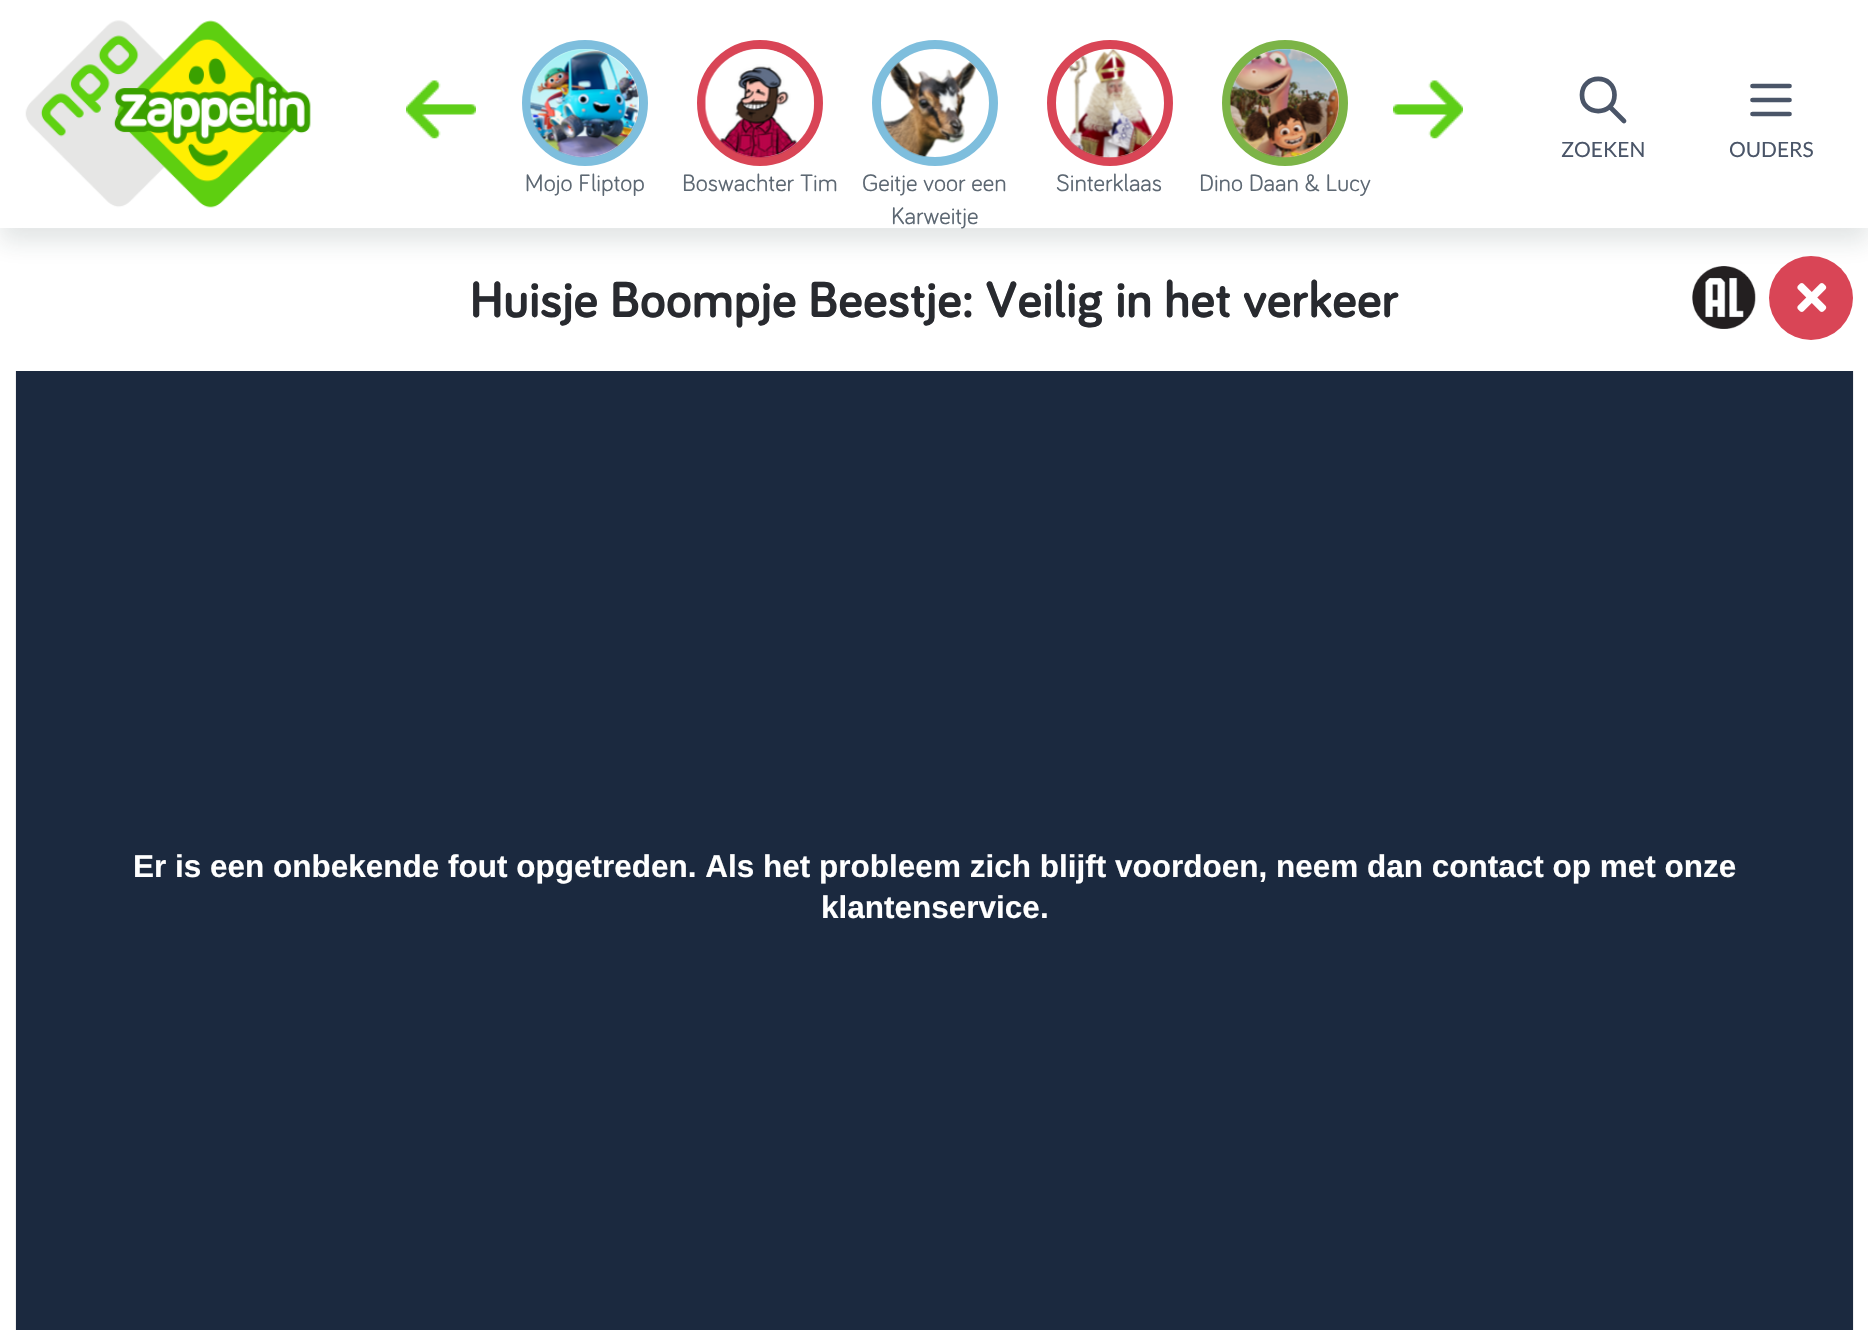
void draw(SkCanvas* canvas) {
    SkPaint paint;
    paint.setAntiAlias(true);
    canvas->clear(0xFFFFFFFF);
    canvas->drawImageRect(SkImages::DeferredFromEncodedData(SkData::MakeFromFileName("img9.png")), SkRect::MakeXYWH(1692, 266, 64, 63), SkSamplingOptions());
    paint.setColor(0x21223939);
    paint.setMaskFilter(SkMaskFilter::MakeBlur(kNormal_SkBlurStyle, 11.5f));
    canvas->drawRect(SkRect::MakeXYWH(0, 14, 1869, 228), paint);
    paint.setMaskFilter(nullptr);
    paint.setColor(0xFFFFFFFF);
    canvas->drawRect(SkRect::MakeXYWH(0, 0, 1868, 228), paint);
    canvas->drawImageRect(SkImages::DeferredFromEncodedData(SkData::MakeFromFileName("img1.png")), SkRect::MakeXYWH(25, 20, 286, 188), SkSamplingOptions());
    paint.setStyle(SkPaint::kStroke_Style);
    paint.setStrokeWidth(4.7f);
    paint.setStrokeCap(SkPaint::kRound_Cap);
    paint.setStrokeJoin(SkPaint::kRound_Join);
    paint.setColor(0xFF4A5568);
    canvas->drawPath(SkPathBuilder().moveTo(1624, 121).lineTo(1610, 107).moveTo(1614.5f, 95).cubicTo(1614.5f, 116.5f, 1582, 116.5f, 1582, 95).cubicTo(1582, 73.5f, 1614.5f, 73.5f, 1614.5f, 95).close().detach(), paint);
    SkFont font1(fontMgr->matchFamilyStyle("Lato", SkFontStyle::Normal()), 21);
    font1.setSubpixel(true);
    paint.setStyle(SkPaint::kFill_Style);
    canvas->drawString("ZOEKEN", 1561, 157, font1, paint);
    paint.setStyle(SkPaint::kStroke_Style);
    canvas->drawPath(SkPathBuilder().moveTo(1752.5f, 86).lineTo(1789.5f, 86).moveTo(1752.5f, 100).lineTo(1789.5f, 100).moveTo(1752.5f, 114).lineTo(1789.5f, 114).detach(), paint);
    paint.setStyle(SkPaint::kFill_Style);
    canvas->drawString("OUDERS", 1729, 157, font1, paint);
    canvas->drawImageRect(SkImages::DeferredFromEncodedData(SkData::MakeFromFileName("img2.png")), SkRect::MakeXYWH(406, 80, 70, 59), SkSamplingOptions());
    canvas->drawImageRect(SkImages::DeferredFromEncodedData(SkData::MakeFromFileName("img3.png")), SkRect::MakeXYWH(1393, 80, 70, 59), SkSamplingOptions());
    paint.setStyle(SkPaint::kStroke_Style);
    paint.setStrokeWidth(9);
    paint.setStrokeCap(SkPaint::kButt_Cap);
    paint.setStrokeJoin(SkPaint::kMiter_Join);
    paint.setColor(0xFF7EBEDD);
    canvas->drawCircle(585, 103, 58.5f, paint);
    canvas->drawImageRect(SkImages::DeferredFromEncodedData(SkData::MakeFromFileName("img4.png")), SkRect::MakeXYWH(530, 49, 109, 109), SkSamplingOptions());
    SkFont font2(fontMgr->matchFamilyStyle("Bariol", SkFontStyle::Normal()), 24.5f);
    font2.setSubpixel(true);
    paint.setStyle(SkPaint::kFill_Style);
    paint.setColor(0xFF5D6873);
    canvas->drawString("Mojo Fliptop", 525, 191, font2, paint);
    paint.setStyle(SkPaint::kStroke_Style);
    paint.setColor(0xFFD94556);
    canvas->drawCircle(760, 103, 58.5f, paint);
    canvas->drawImageRect(SkImages::DeferredFromEncodedData(SkData::MakeFromFileName("img5.png")), SkRect::MakeXYWH(704, 48, 111, 110), SkSamplingOptions());
    paint.setStyle(SkPaint::kFill_Style);
    paint.setColor(0xFF5D6873);
    canvas->drawString("Boswachter Tim", 682, 191, font2, paint);
    paint.setStyle(SkPaint::kStroke_Style);
    paint.setColor(0xFF7EBEDD);
    canvas->drawCircle(935, 103, 58.5f, paint);
    canvas->drawImageRect(SkImages::DeferredFromEncodedData(SkData::MakeFromFileName("img6.png")), SkRect::MakeXYWH(883, 62, 94, 95), SkSamplingOptions());
    paint.setStyle(SkPaint::kFill_Style);
    paint.setColor(0xFF5D6873);
    canvas->drawString("Geitje voor een", 862, 191, font2, paint);
    canvas->drawString("Karweitje", 891, 224, font2, paint);
    paint.setStyle(SkPaint::kStroke_Style);
    paint.setColor(0xFFD94556);
    canvas->drawCircle(1110, 103, 58.5f, paint);
    canvas->drawImageRect(SkImages::DeferredFromEncodedData(SkData::MakeFromFileName("img7.png")), SkRect::MakeXYWH(1068, 49, 85, 109), SkSamplingOptions());
    paint.setStyle(SkPaint::kFill_Style);
    paint.setColor(0xFF5D6873);
    canvas->drawString("Sinterklaas", 1056, 191, font2, paint);
    paint.setStyle(SkPaint::kStroke_Style);
    paint.setColor(0xFF7CB447);
    canvas->drawCircle(1285, 103, 58.5f, paint);
    canvas->drawImageRect(SkImages::DeferredFromEncodedData(SkData::MakeFromFileName("img8.png")), SkRect::MakeXYWH(1229, 48, 110, 110), SkSamplingOptions());
    paint.setStyle(SkPaint::kFill_Style);
    paint.setColor(0xFF5D6873);
    canvas->drawString("Dino Daan & Lucy", 1199, 191, font2, paint);
    SkFont font3(fontMgr->matchFamilyStyle("Bariol", SkFontStyle::Bold()), 52.5f);
    font3.setSubpixel(true);
    paint.setColor(0xFF282A2F);
    canvas->drawString("Huisje Boompje Beestje: Veilig in het verkeer", 470, 317, font3, paint);
    paint.setColor(0xFFD94556);
    canvas->drawCircle(1811, 298, 42, paint);
    canvas->drawImageRect(SkImages::DeferredFromEncodedData(SkData::MakeFromFileName("img10.png")), SkRect::MakeXYWH(1797, 283, 30, 29), SkSamplingOptions());
    canvas->drawImageRect(SkImages::DeferredFromEncodedData(SkData::MakeFromFileName("img11.png")), SkRect::MakeXYWH(15, 371, 1839, 959), SkSamplingOptions());
    paint.setColor(0xFF1B293F);
    canvas->drawRect(SkRect::MakeXYWH(16, 371, 1837, 959), paint);
    SkFont font4(fontMgr->matchFamilyStyle("Liberation Sans", SkFontStyle::Bold()), 31.5f);
    font4.setSubpixel(true);
    paint.setColor(0xFFFFFFFF);
    canvas->drawString("Er is een onbekende fout opgetreden. Als het probleem zich blijft voordoen, neem dan contact op met onze", 133, 877, font4, paint);
    canvas->drawString("klantenservice.", 821, 918, font4, paint);
}
